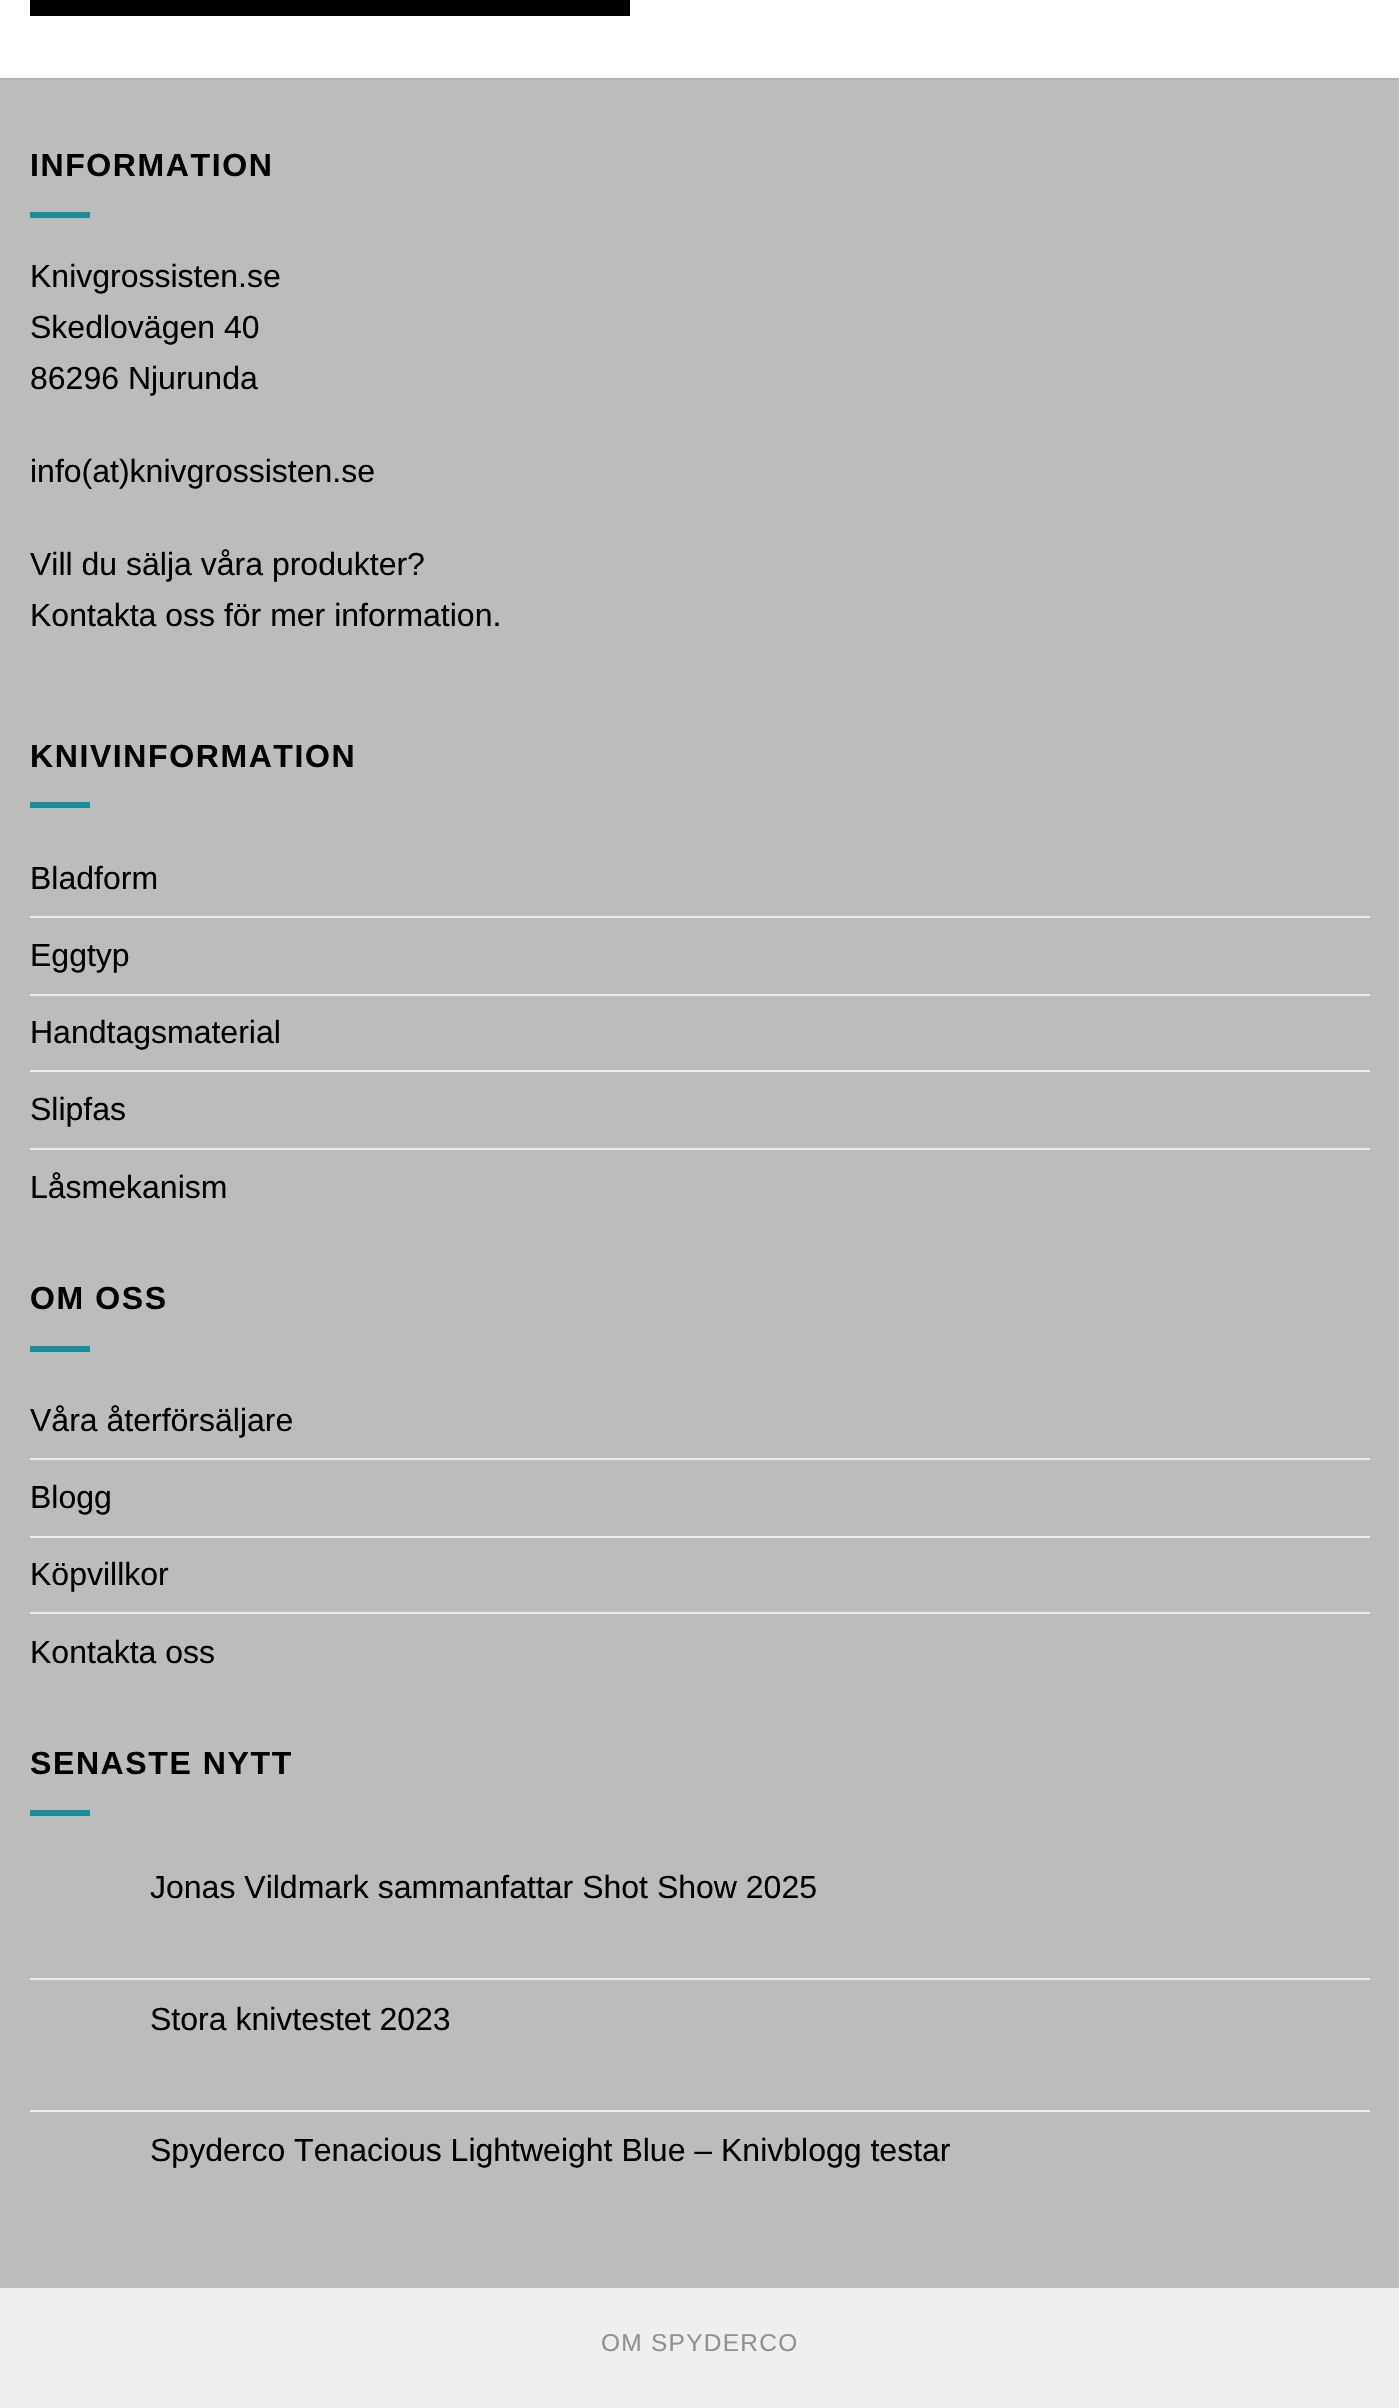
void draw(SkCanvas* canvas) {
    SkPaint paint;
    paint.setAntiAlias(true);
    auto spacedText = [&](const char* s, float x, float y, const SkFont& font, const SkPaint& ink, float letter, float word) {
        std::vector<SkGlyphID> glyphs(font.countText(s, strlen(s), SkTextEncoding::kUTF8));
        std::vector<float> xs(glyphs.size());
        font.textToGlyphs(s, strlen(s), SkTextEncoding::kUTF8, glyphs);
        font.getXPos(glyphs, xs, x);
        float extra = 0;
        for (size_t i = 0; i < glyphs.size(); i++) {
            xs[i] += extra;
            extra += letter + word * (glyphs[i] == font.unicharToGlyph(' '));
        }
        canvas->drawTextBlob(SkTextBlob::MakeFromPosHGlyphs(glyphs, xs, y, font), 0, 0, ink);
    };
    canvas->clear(0xFFFFFFFF);
    paint.setColor(0xFF000000);
    canvas->drawRect(SkRect::MakeXYWH(30, 0, 600, 16), paint);
    paint.setColor(0xFFBCBCBC);
    canvas->drawRect(SkRect::MakeXYWH(0, 80, 1399, 2208), paint);
    paint.setColor(0xFFB3B3B3);
    canvas->drawRect(SkRect::MakeXYWH(0, 78, 1399, 2), paint);
    SkFont font1(fontMgr->matchFamilyStyle("Liberation Sans", SkFontStyle::Bold()), 32);
    font1.setSubpixel(true);
    paint.setColor(0xFF000000);
    spacedText("INFORMATION", 30, 176, font1, paint, 1.6f, 0);
    paint.setColor(0xFF1B8C99);
    canvas->drawRect(SkRect::MakeXYWH(30, 212, 60, 6), paint);
    SkFont font2(fontMgr->matchFamilyStyle("Liberation Sans", SkFontStyle::Normal()), 32);
    font2.setSubpixel(true);
    paint.setColor(0xFF000000);
    canvas->drawString("Knivgrossisten.se", 30, 287, font2, paint);
    canvas->drawString("Skedlovägen 40", 30, 338, font2, paint);
    canvas->drawString("86296 Njurunda", 30, 389, font2, paint);
    canvas->drawString("info(at)knivgrossisten.se", 30, 482, font2, paint);
    canvas->drawString("Vill du sälja våra produkter?", 30, 575, font2, paint);
    canvas->drawString("Kontakta oss för mer information.", 30, 626, font2, paint);
    spacedText("KNIVINFORMATION", 30, 767, font1, paint, 1.6f, 0);
    paint.setColor(0xFF1B8C99);
    canvas->drawRect(SkRect::MakeXYWH(30, 802, 60, 6), paint);
    paint.setColor(0xFF000000);
    canvas->drawString("Bladform", 30, 889, font2, paint);
    paint.setColor(0xFFECECEC);
    canvas->drawRect(SkRect::MakeXYWH(30, 916, 1340, 2), paint);
    paint.setColor(0xFF000000);
    canvas->drawString("Eggtyp", 30, 966, font2, paint);
    paint.setColor(0xFFECECEC);
    canvas->drawRect(SkRect::MakeXYWH(30, 994, 1340, 2), paint);
    paint.setColor(0xFF000000);
    canvas->drawString("Handtagsmaterial", 30, 1043, font2, paint);
    paint.setColor(0xFFECECEC);
    canvas->drawRect(SkRect::MakeXYWH(30, 1070, 1340, 2), paint);
    paint.setColor(0xFF000000);
    canvas->drawString("Slipfas", 30, 1120, font2, paint);
    paint.setColor(0xFFECECEC);
    canvas->drawRect(SkRect::MakeXYWH(30, 1148, 1340, 2), paint);
    paint.setColor(0xFF000000);
    canvas->drawString("Låsmekanism", 30, 1198, font2, paint);
    spacedText("OM OSS", 30, 1309, font1, paint, 1.6f, 0);
    paint.setColor(0xFF1B8C99);
    canvas->drawRect(SkRect::MakeXYWH(30, 1346, 60, 6), paint);
    paint.setColor(0xFF000000);
    canvas->drawString("Våra återförsäljare", 30, 1431, font2, paint);
    paint.setColor(0xFFECECEC);
    canvas->drawRect(SkRect::MakeXYWH(30, 1458, 1340, 2), paint);
    paint.setColor(0xFF000000);
    canvas->drawString("Blogg", 30, 1508, font2, paint);
    paint.setColor(0xFFECECEC);
    canvas->drawRect(SkRect::MakeXYWH(30, 1536, 1340, 2), paint);
    paint.setColor(0xFF000000);
    canvas->drawString("Köpvillkor", 30, 1585, font2, paint);
    paint.setColor(0xFFECECEC);
    canvas->drawRect(SkRect::MakeXYWH(30, 1612, 1340, 2), paint);
    paint.setColor(0xFF000000);
    canvas->drawString("Kontakta oss", 30, 1663, font2, paint);
    spacedText("SENASTE NYTT", 30, 1774, font1, paint, 1.6f, 0);
    paint.setColor(0xFF1B8C99);
    canvas->drawRect(SkRect::MakeXYWH(30, 1810, 60, 6), paint);
    paint.setColor(0xFF000000);
    canvas->drawString("Jonas Vildmark sammanfattar Shot Show 2025", 150, 1898, font2, paint);
    paint.setColor(0xFFECECEC);
    canvas->drawRect(SkRect::MakeXYWH(30, 1978, 1340, 2), paint);
    paint.setColor(0xFF000000);
    canvas->drawString("Stora knivtestet 2023", 150, 2030, font2, paint);
    paint.setColor(0xFFECECEC);
    canvas->drawRect(SkRect::MakeXYWH(30, 2110, 1340, 2), paint);
    paint.setColor(0xFF000000);
    canvas->drawString("Spyderco Tenacious Lightweight Blue – Knivblogg testar", 150, 2161, font2, paint);
    paint.setColor(0xFFEFEFEF);
    canvas->drawRect(SkRect::MakeXYWH(0, 2288, 1399, 120), paint);
    SkFont font3(fontMgr->matchFamilyStyle("Liberation Sans", SkFontStyle::Normal()), 24.5f);
    font3.setSubpixel(true);
    paint.setColor(0xFF909090);
    spacedText("OM SPYDERCO", 601, 2351, font3, paint, 1.25f, 0);
}
